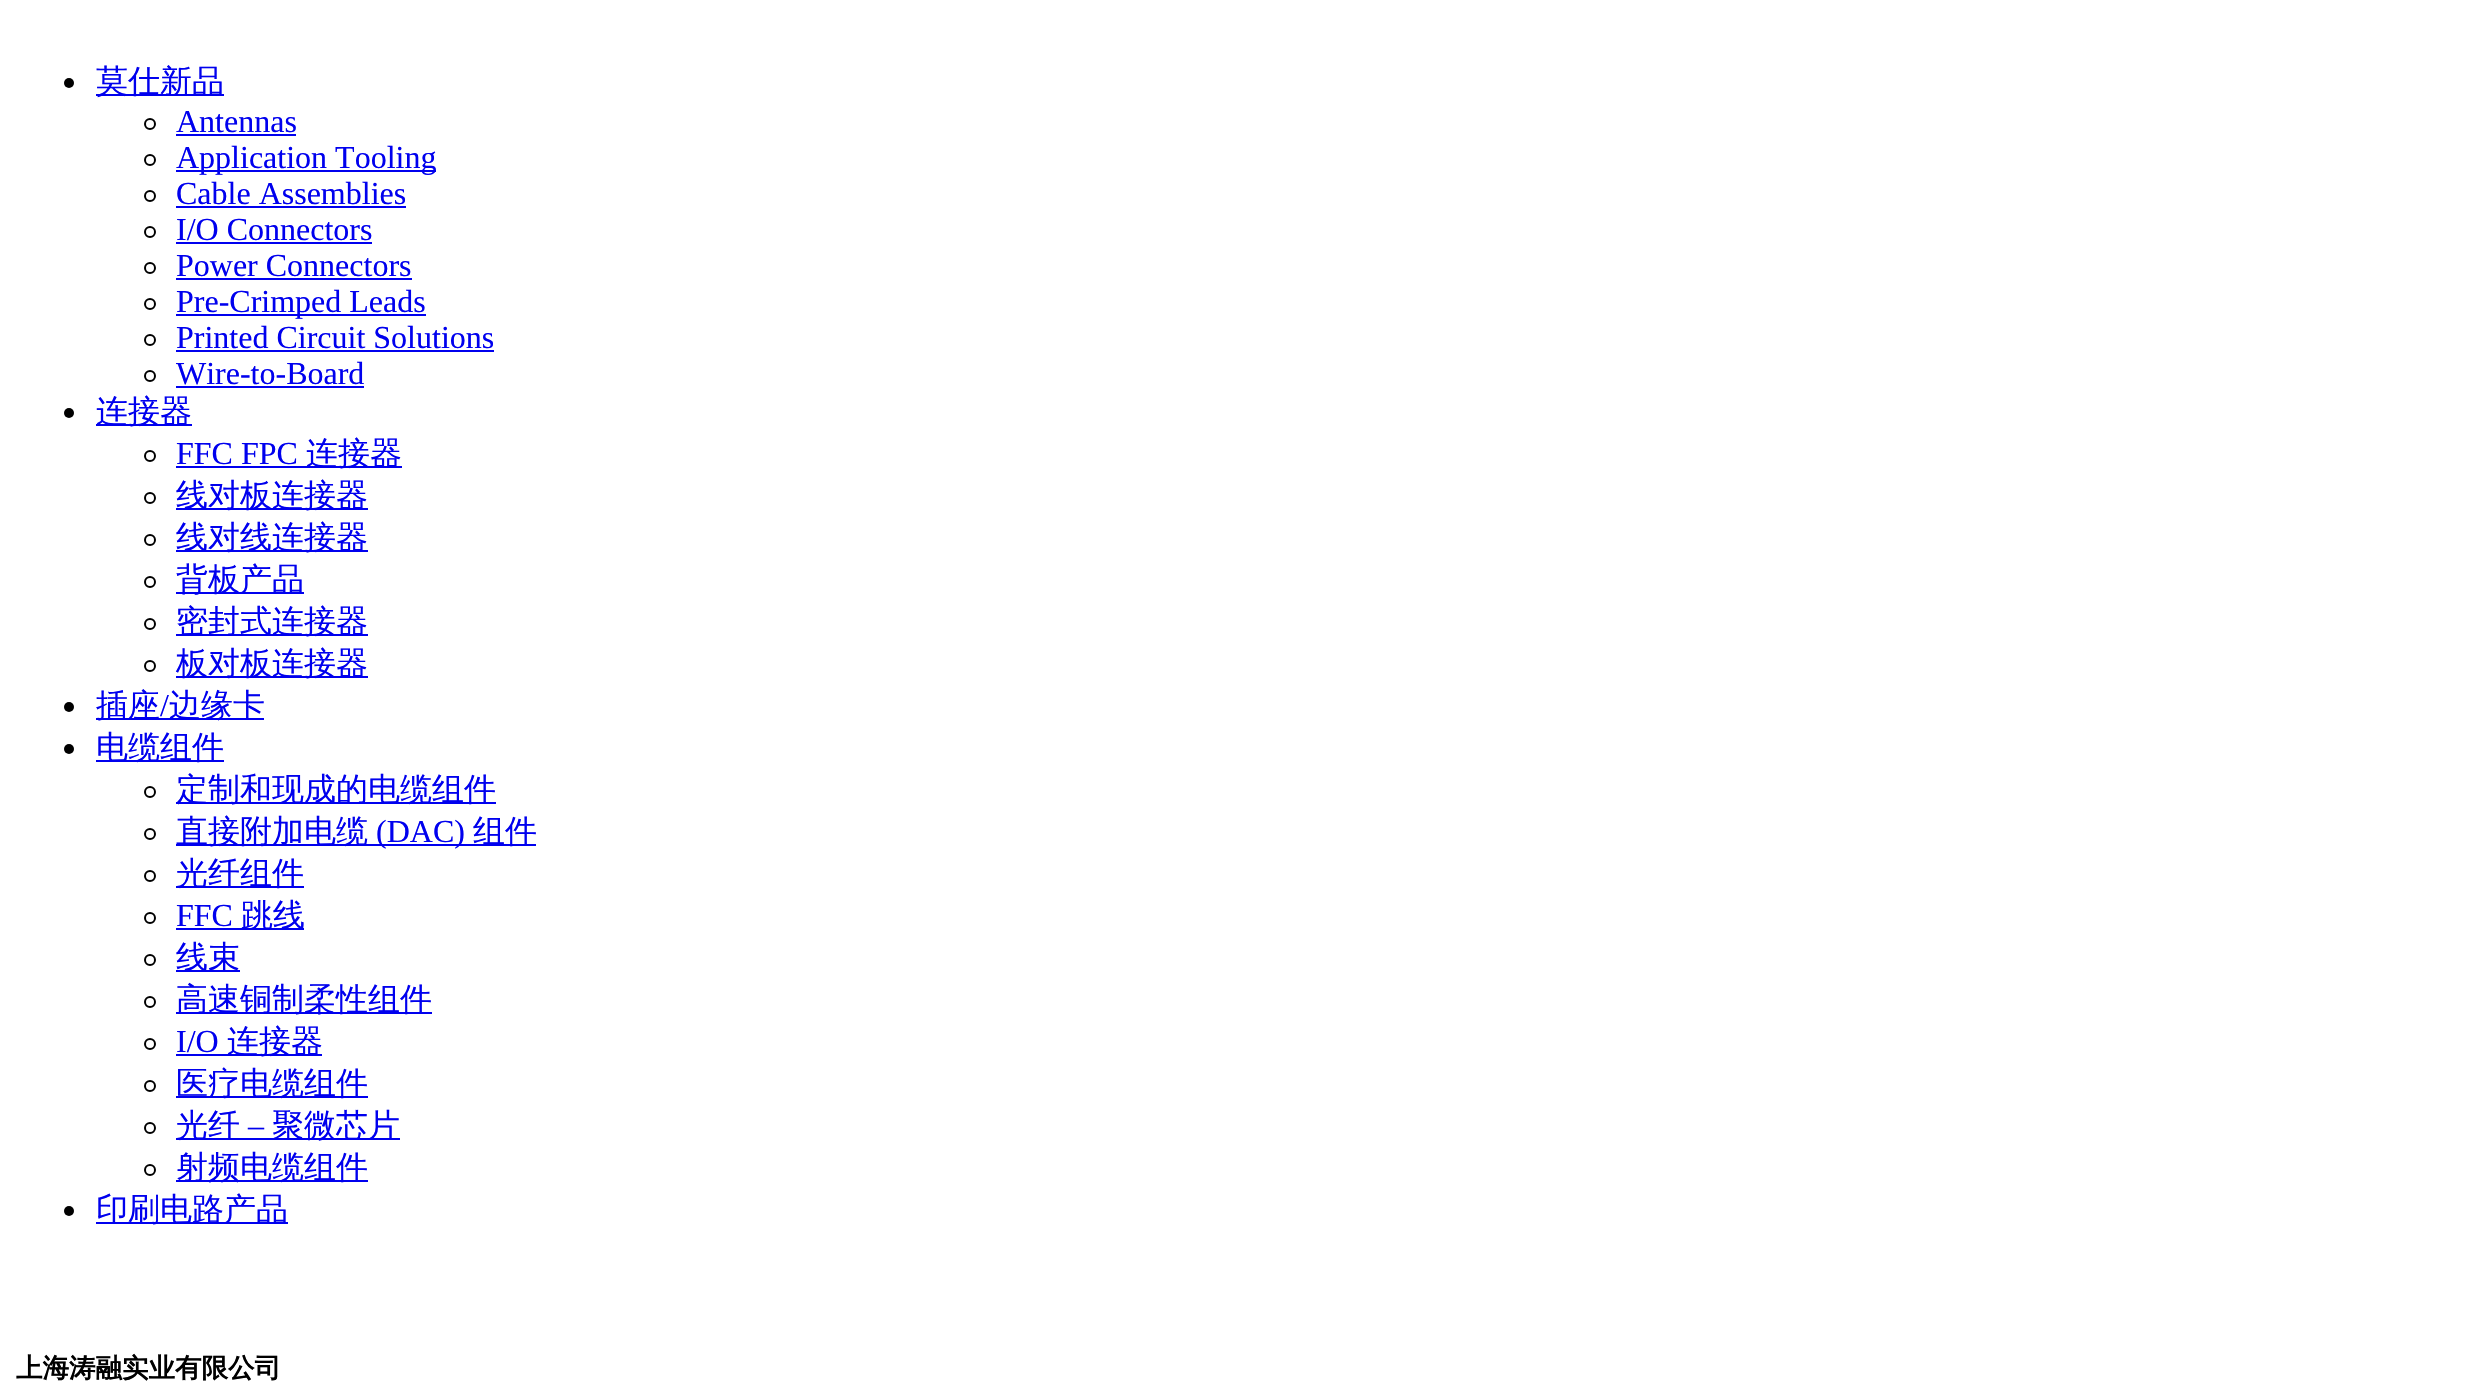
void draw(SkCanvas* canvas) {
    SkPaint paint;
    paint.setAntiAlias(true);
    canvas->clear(0xFFFFFFFF);
    paint.setColor(0xFF000000);
    canvas->drawCircle(69, 83, 5, paint);
    paint.setColor(0xFF0000EE);
    canvas->drawRect(SkRect::MakeXYWH(96, 94, 128, 2), paint);
    SkFont font1(fontMgr->matchFamilyStyle("WenQuanYi Zen Hei", SkFontStyle(500, SkFontStyle::kNormal_Width, SkFontStyle::kUpright_Slant)), 32);
    font1.setSubpixel(true);
    canvas->drawString("莫仕新品", 96, 92, font1, paint);
    paint.setStyle(SkPaint::kStroke_Style);
    paint.setStrokeWidth(2);
    paint.setColor(0xFF000000);
    canvas->drawCircle(150, 124, 5, paint);
    SkFont font2(fontMgr->matchFamilyStyle("Liberation Serif", SkFontStyle::Normal()), 32);
    font2.setSubpixel(true);
    paint.setStyle(SkPaint::kFill_Style);
    paint.setColor(0xFF0000EE);
    canvas->drawString("Antennas", 176, 132, font2, paint);
    canvas->drawRect(SkRect::MakeXYWH(176, 134, 120, 2), paint);
    paint.setStyle(SkPaint::kStroke_Style);
    paint.setColor(0xFF000000);
    canvas->drawCircle(150, 160, 5, paint);
    paint.setStyle(SkPaint::kFill_Style);
    paint.setColor(0xFF0000EE);
    canvas->drawRect(SkRect::MakeXYWH(176, 170, 260, 2), paint);
    canvas->drawString("Application Tooling", 176, 168, font2, paint);
    paint.setStyle(SkPaint::kStroke_Style);
    paint.setColor(0xFF000000);
    canvas->drawCircle(150, 196, 5, paint);
    paint.setStyle(SkPaint::kFill_Style);
    paint.setColor(0xFF0000EE);
    canvas->drawString("Cable Assemblies", 176, 204, font2, paint);
    canvas->drawRect(SkRect::MakeXYWH(176, 206, 230, 2), paint);
    paint.setStyle(SkPaint::kStroke_Style);
    paint.setColor(0xFF000000);
    canvas->drawCircle(150, 232, 5, paint);
    paint.setStyle(SkPaint::kFill_Style);
    paint.setColor(0xFF0000EE);
    canvas->drawString("I/O Connectors", 176, 240, font2, paint);
    canvas->drawRect(SkRect::MakeXYWH(176, 242, 196, 2), paint);
    paint.setStyle(SkPaint::kStroke_Style);
    paint.setColor(0xFF000000);
    canvas->drawCircle(150, 268, 5, paint);
    paint.setStyle(SkPaint::kFill_Style);
    paint.setColor(0xFF0000EE);
    canvas->drawString("Power Connectors", 176, 276, font2, paint);
    canvas->drawRect(SkRect::MakeXYWH(176, 278, 236, 2), paint);
    paint.setStyle(SkPaint::kStroke_Style);
    paint.setColor(0xFF000000);
    canvas->drawCircle(150, 304, 5, paint);
    paint.setStyle(SkPaint::kFill_Style);
    paint.setColor(0xFF0000EE);
    canvas->drawRect(SkRect::MakeXYWH(176, 314, 250, 2), paint);
    canvas->drawString("Pre-Crimped Leads", 176, 312, font2, paint);
    paint.setStyle(SkPaint::kStroke_Style);
    paint.setColor(0xFF000000);
    canvas->drawCircle(150, 340, 5, paint);
    paint.setStyle(SkPaint::kFill_Style);
    paint.setColor(0xFF0000EE);
    canvas->drawString("Printed Circuit Solutions", 176, 348, font2, paint);
    canvas->drawRect(SkRect::MakeXYWH(176, 350, 318, 2), paint);
    paint.setStyle(SkPaint::kStroke_Style);
    paint.setColor(0xFF000000);
    canvas->drawCircle(150, 376, 5, paint);
    paint.setStyle(SkPaint::kFill_Style);
    paint.setColor(0xFF0000EE);
    canvas->drawString("Wire-to-Board", 176, 384, font2, paint);
    canvas->drawRect(SkRect::MakeXYWH(176, 386, 188, 2), paint);
    paint.setColor(0xFF000000);
    canvas->drawCircle(69, 413, 5, paint);
    paint.setColor(0xFF0000EE);
    canvas->drawRect(SkRect::MakeXYWH(96, 424, 96, 2), paint);
    canvas->drawString("连接器", 96, 422, font1, paint);
    paint.setStyle(SkPaint::kStroke_Style);
    paint.setColor(0xFF000000);
    canvas->drawCircle(150, 456, 5, paint);
    paint.setStyle(SkPaint::kFill_Style);
    paint.setColor(0xFF0000EE);
    canvas->drawString("FFC FPC", 176, 464, font2, paint);
    canvas->drawRect(SkRect::MakeXYWH(176, 466, 226, 2), paint);
    canvas->drawString("连接器", 306, 464, font1, paint);
    paint.setStyle(SkPaint::kStroke_Style);
    paint.setColor(0xFF000000);
    canvas->drawCircle(150, 498, 5, paint);
    paint.setStyle(SkPaint::kFill_Style);
    paint.setColor(0xFF0000EE);
    canvas->drawRect(SkRect::MakeXYWH(176, 508, 192, 2), paint);
    canvas->drawString("线对板连接器", 176, 506, font1, paint);
    paint.setStyle(SkPaint::kStroke_Style);
    paint.setColor(0xFF000000);
    canvas->drawCircle(150, 540, 5, paint);
    paint.setStyle(SkPaint::kFill_Style);
    paint.setColor(0xFF0000EE);
    canvas->drawRect(SkRect::MakeXYWH(176, 550, 192, 2), paint);
    canvas->drawString("线对线连接器", 176, 548, font1, paint);
    paint.setStyle(SkPaint::kStroke_Style);
    paint.setColor(0xFF000000);
    canvas->drawCircle(150, 582, 5, paint);
    paint.setStyle(SkPaint::kFill_Style);
    paint.setColor(0xFF0000EE);
    canvas->drawRect(SkRect::MakeXYWH(176, 592, 128, 2), paint);
    canvas->drawString("背板产品", 176, 590, font1, paint);
    paint.setStyle(SkPaint::kStroke_Style);
    paint.setColor(0xFF000000);
    canvas->drawCircle(150, 624, 5, paint);
    paint.setStyle(SkPaint::kFill_Style);
    paint.setColor(0xFF0000EE);
    canvas->drawRect(SkRect::MakeXYWH(176, 634, 192, 2), paint);
    canvas->drawString("密封式连接器", 176, 632, font1, paint);
    paint.setStyle(SkPaint::kStroke_Style);
    paint.setColor(0xFF000000);
    canvas->drawCircle(150, 666, 5, paint);
    paint.setStyle(SkPaint::kFill_Style);
    paint.setColor(0xFF0000EE);
    canvas->drawRect(SkRect::MakeXYWH(176, 676, 192, 2), paint);
    canvas->drawString("板对板连接器", 176, 674, font1, paint);
    paint.setColor(0xFF000000);
    canvas->drawCircle(69, 707, 5, paint);
    paint.setColor(0xFF0000EE);
    canvas->drawRect(SkRect::MakeXYWH(96, 718, 168, 2), paint);
    canvas->drawString("插座", 96, 716, font1, paint);
    canvas->drawString("/", 160, 716, font2, paint);
    canvas->drawString("边缘卡", 169, 716, font1, paint);
    paint.setColor(0xFF000000);
    canvas->drawCircle(69, 749, 5, paint);
    paint.setColor(0xFF0000EE);
    canvas->drawRect(SkRect::MakeXYWH(96, 760, 128, 2), paint);
    canvas->drawString("电缆组件", 96, 758, font1, paint);
    paint.setStyle(SkPaint::kStroke_Style);
    paint.setColor(0xFF000000);
    canvas->drawCircle(150, 792, 5, paint);
    paint.setStyle(SkPaint::kFill_Style);
    paint.setColor(0xFF0000EE);
    canvas->drawRect(SkRect::MakeXYWH(176, 802, 320, 2), paint);
    canvas->drawString("定制和现成的电缆组件", 176, 800, font1, paint);
    paint.setStyle(SkPaint::kStroke_Style);
    paint.setColor(0xFF000000);
    canvas->drawCircle(150, 834, 5, paint);
    paint.setStyle(SkPaint::kFill_Style);
    paint.setColor(0xFF0000EE);
    canvas->drawRect(SkRect::MakeXYWH(176, 844, 360, 2), paint);
    canvas->drawString("直接附加电缆", 176, 842, font1, paint);
    canvas->drawString("(DAC)", 376, 842, font2, paint);
    canvas->drawString("组件", 473, 842, font1, paint);
    paint.setStyle(SkPaint::kStroke_Style);
    paint.setColor(0xFF000000);
    canvas->drawCircle(150, 876, 5, paint);
    paint.setStyle(SkPaint::kFill_Style);
    paint.setColor(0xFF0000EE);
    canvas->drawRect(SkRect::MakeXYWH(176, 886, 128, 2), paint);
    canvas->drawString("光纤组件", 176, 884, font1, paint);
    paint.setStyle(SkPaint::kStroke_Style);
    paint.setColor(0xFF000000);
    canvas->drawCircle(150, 918, 5, paint);
    paint.setStyle(SkPaint::kFill_Style);
    paint.setColor(0xFF0000EE);
    canvas->drawString("FFC", 176, 926, font2, paint);
    canvas->drawRect(SkRect::MakeXYWH(176, 928, 128, 2), paint);
    canvas->drawString("跳线", 241, 926, font1, paint);
    paint.setStyle(SkPaint::kStroke_Style);
    paint.setColor(0xFF000000);
    canvas->drawCircle(150, 960, 5, paint);
    paint.setStyle(SkPaint::kFill_Style);
    paint.setColor(0xFF0000EE);
    canvas->drawRect(SkRect::MakeXYWH(176, 970, 64, 2), paint);
    canvas->drawString("线束", 176, 968, font1, paint);
    paint.setStyle(SkPaint::kStroke_Style);
    paint.setColor(0xFF000000);
    canvas->drawCircle(150, 1002, 5, paint);
    paint.setStyle(SkPaint::kFill_Style);
    paint.setColor(0xFF0000EE);
    canvas->drawRect(SkRect::MakeXYWH(176, 1012, 256, 2), paint);
    canvas->drawString("高速铜制柔性组件", 176, 1010, font1, paint);
    paint.setStyle(SkPaint::kStroke_Style);
    paint.setColor(0xFF000000);
    canvas->drawCircle(150, 1044, 5, paint);
    paint.setStyle(SkPaint::kFill_Style);
    paint.setColor(0xFF0000EE);
    canvas->drawString("I/O", 176, 1052, font2, paint);
    canvas->drawRect(SkRect::MakeXYWH(176, 1054, 146, 2), paint);
    canvas->drawString("连接器", 227, 1052, font1, paint);
    paint.setStyle(SkPaint::kStroke_Style);
    paint.setColor(0xFF000000);
    canvas->drawCircle(150, 1086, 5, paint);
    paint.setStyle(SkPaint::kFill_Style);
    paint.setColor(0xFF0000EE);
    canvas->drawRect(SkRect::MakeXYWH(176, 1096, 192, 2), paint);
    canvas->drawString("医疗电缆组件", 176, 1094, font1, paint);
    paint.setStyle(SkPaint::kStroke_Style);
    paint.setColor(0xFF000000);
    canvas->drawCircle(150, 1128, 5, paint);
    paint.setStyle(SkPaint::kFill_Style);
    paint.setColor(0xFF0000EE);
    canvas->drawRect(SkRect::MakeXYWH(176, 1138, 224, 2), paint);
    canvas->drawString("光纤", 176, 1136, font1, paint);
    canvas->drawString("–", 248, 1136, font2, paint);
    canvas->drawString("聚微芯片", 272, 1136, font1, paint);
    paint.setStyle(SkPaint::kStroke_Style);
    paint.setColor(0xFF000000);
    canvas->drawCircle(150, 1170, 5, paint);
    paint.setStyle(SkPaint::kFill_Style);
    paint.setColor(0xFF0000EE);
    canvas->drawRect(SkRect::MakeXYWH(176, 1180, 192, 2), paint);
    canvas->drawString("射频电缆组件", 176, 1178, font1, paint);
    paint.setColor(0xFF000000);
    canvas->drawCircle(69, 1211, 5, paint);
    paint.setColor(0xFF0000EE);
    canvas->drawRect(SkRect::MakeXYWH(96, 1222, 192, 2), paint);
    canvas->drawString("印刷电路产品", 96, 1220, font1, paint);
    SkFont font3(fontMgr->matchFamilyStyle("WenQuanYi Zen Hei", SkFontStyle::Bold()), 26.5f);
    font3.setSubpixel(true);
    paint.setColor(0xFF000000);
    canvas->drawString("上海涛融实业有限公司", 16, 1377, font3, paint);
}
